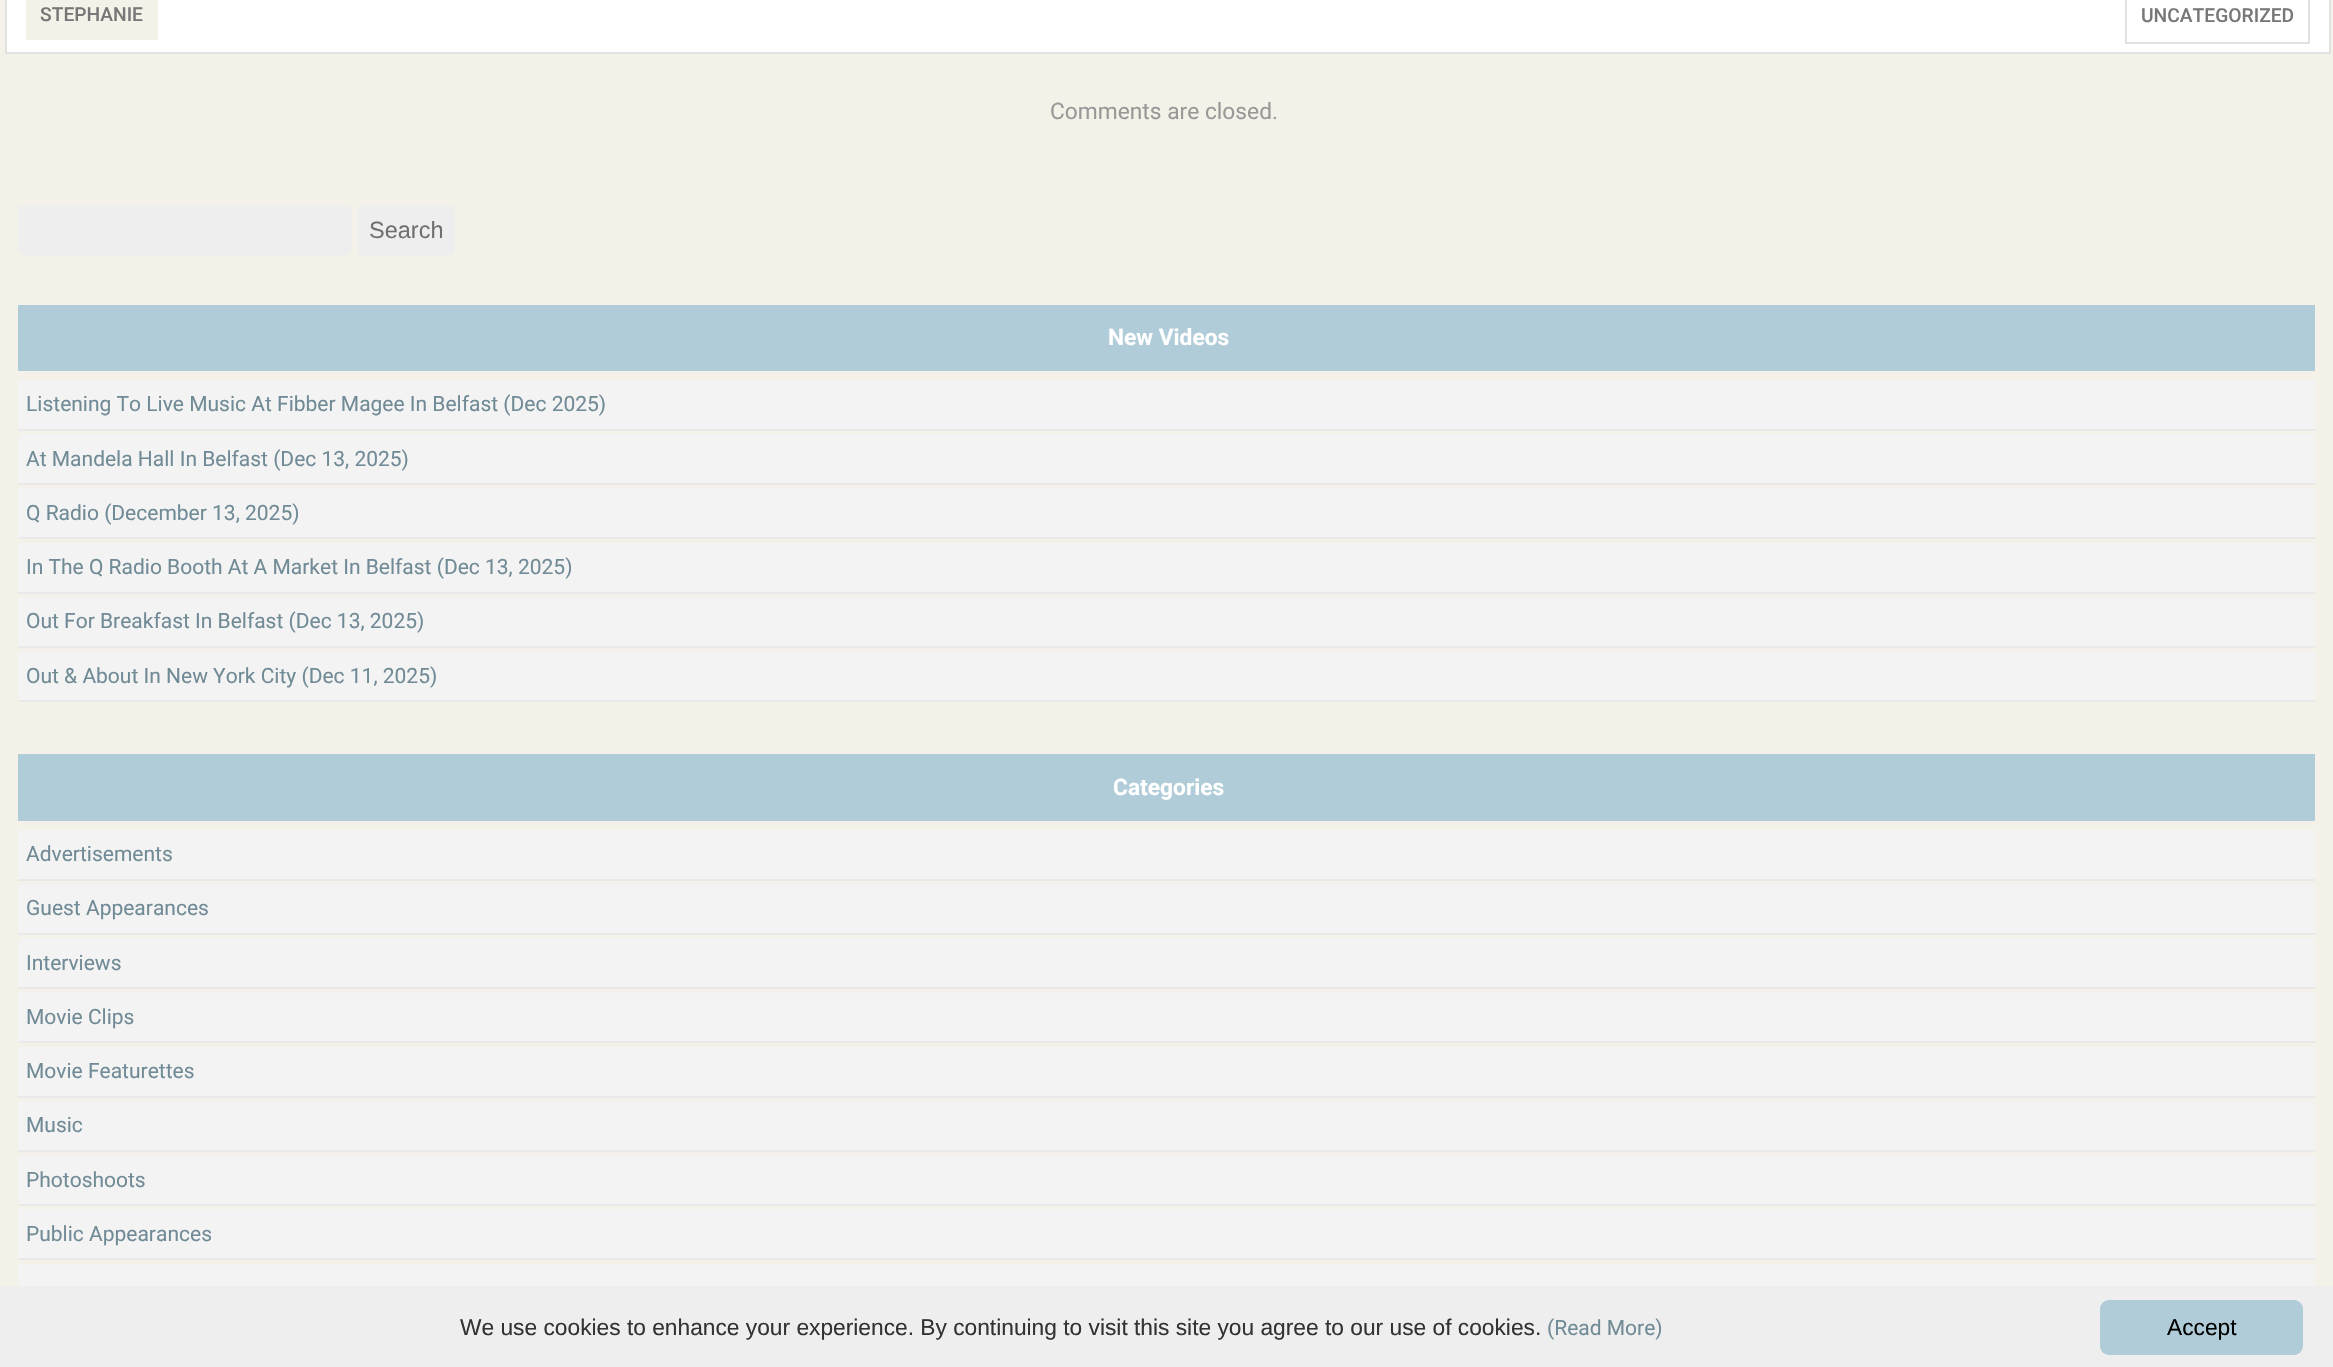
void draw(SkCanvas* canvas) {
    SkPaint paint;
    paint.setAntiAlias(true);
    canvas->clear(0xFFF4F2E8);
    paint.setColor(0xFFFFFFFF);
    canvas->drawRect(SkRect::MakeXYWH(6, -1, 2324, 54), paint);
    paint.setStyle(SkPaint::kStroke_Style);
    paint.setStrokeWidth(2);
    paint.setColor(0xFFE1E1E1);
    canvas->drawRect(SkRect::MakeXYWH(6, -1, 2324, 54), paint);
    paint.setStyle(SkPaint::kFill_Style);
    paint.setColor(0xFFF4F2E8);
    canvas->drawRect(SkRect::MakeXYWH(26, 0, 132, 40), paint);
    SkFont font1(fontMgr->matchFamilyStyle("Roboto", SkFontStyle(500, SkFontStyle::kNormal_Width, SkFontStyle::kUpright_Slant)), 19.25f);
    font1.setSubpixel(true);
    paint.setColor(0xFF777777);
    canvas->drawString("STEPHANIE", 40, 21, font1, paint);
    paint.setStyle(SkPaint::kStroke_Style);
    paint.setColor(0xFFE1E1E1);
    canvas->drawRect(SkRect::MakeXYWH(2126, -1, 183, 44), paint);
    paint.setStyle(SkPaint::kFill_Style);
    paint.setColor(0xFF777777);
    canvas->drawString("UNCATEGORIZED", 2141, 22, font1, paint);
    SkFont font2(fontMgr->matchFamilyStyle("Roboto", SkFontStyle::Normal()), 22.75f);
    font2.setSubpixel(true);
    paint.setColor(0xFF989898);
    canvas->drawString("Comments are closed.", 1050, 119, font2, paint);
    paint.setColor(0xFFEEEEEE);
    canvas->drawRoundRect(SkRect::MakeXYWH(18, 205, 334, 51), 7, 7, paint);
    canvas->drawRoundRect(SkRect::MakeXYWH(357, 205, 98, 51), 7, 7, paint);
    SkFont font3(fontMgr->matchFamilyStyle("Liberation Sans", SkFontStyle::Normal()), 23.5f);
    font3.setSubpixel(true);
    paint.setColor(0xFF707070);
    canvas->drawString("Search", 369, 238, font3, paint);
    paint.setColor(0xFFB0CCD8);
    canvas->drawRect(SkRect::MakeXYWH(18, 305, 2297, 66), paint);
    SkFont font4(fontMgr->matchFamilyStyle("Roboto", SkFontStyle::Bold()), 22.75f);
    font4.setSubpixel(true);
    paint.setColor(0xFFFFFFFF);
    canvas->drawString("New Videos", 1108, 345, font4, paint);
    paint.setColor(0xFFF3F3F3);
    canvas->drawRect(SkRect::MakeXYWH(18, 380, 2297, 49), paint);
    paint.setColor(0xFFE9E9E9);
    canvas->drawRect(SkRect::MakeXYWH(18, 429, 2297, 2), paint);
    SkFont font5(fontMgr->matchFamilyStyle("Roboto", SkFontStyle::Normal()), 21);
    font5.setSubpixel(true);
    paint.setColor(0xFF718B96);
    canvas->drawString("Listening To Live Music At Fibber Magee In Belfast (Dec 2025)", 26, 411, font5, paint);
    paint.setColor(0xFFF3F3F3);
    canvas->drawRect(SkRect::MakeXYWH(18, 434, 2297, 49), paint);
    paint.setColor(0xFFE9E9E9);
    canvas->drawRect(SkRect::MakeXYWH(18, 483, 2297, 2), paint);
    paint.setColor(0xFF718B96);
    canvas->drawString("At Mandela Hall In Belfast (Dec 13, 2025)", 26, 466, font5, paint);
    paint.setColor(0xFFF3F3F3);
    canvas->drawRect(SkRect::MakeXYWH(18, 488, 2297, 49), paint);
    paint.setColor(0xFFE9E9E9);
    canvas->drawRect(SkRect::MakeXYWH(18, 537, 2297, 2), paint);
    paint.setColor(0xFF718B96);
    canvas->drawString("Q Radio (December 13, 2025)", 26, 520, font5, paint);
    paint.setColor(0xFFF3F3F3);
    canvas->drawRect(SkRect::MakeXYWH(18, 543, 2297, 49), paint);
    paint.setColor(0xFFE9E9E9);
    canvas->drawRect(SkRect::MakeXYWH(18, 592, 2297, 2), paint);
    paint.setColor(0xFF718B96);
    canvas->drawString("In The Q Radio Booth At A Market In Belfast (Dec 13, 2025)", 26, 574, font5, paint);
    paint.setColor(0xFFF3F3F3);
    canvas->drawRect(SkRect::MakeXYWH(18, 597, 2297, 49), paint);
    paint.setColor(0xFFE9E9E9);
    canvas->drawRect(SkRect::MakeXYWH(18, 646, 2297, 2), paint);
    paint.setColor(0xFF718B96);
    canvas->drawString("Out For Breakfast In Belfast (Dec 13, 2025)", 26, 628, font5, paint);
    paint.setColor(0xFFF3F3F3);
    canvas->drawRect(SkRect::MakeXYWH(18, 651, 2297, 49), paint);
    paint.setColor(0xFFE9E9E9);
    canvas->drawRect(SkRect::MakeXYWH(18, 700, 2297, 2), paint);
    paint.setColor(0xFF718B96);
    canvas->drawString("Out & About In New York City (Dec 11, 2025)", 26, 683, font5, paint);
    paint.setColor(0xFFB0CCD8);
    canvas->drawRect(SkRect::MakeXYWH(18, 754, 2297, 67), paint);
    paint.setColor(0xFFFFFFFF);
    canvas->drawString("Categories", 1113, 795, font4, paint);
    paint.setColor(0xFFF3F3F3);
    canvas->drawRect(SkRect::MakeXYWH(18, 830, 2297, 49), paint);
    paint.setColor(0xFFE9E9E9);
    canvas->drawRect(SkRect::MakeXYWH(18, 879, 2297, 2), paint);
    paint.setColor(0xFF718B96);
    canvas->drawString("Advertisements", 26, 861, font5, paint);
    paint.setColor(0xFFF3F3F3);
    canvas->drawRect(SkRect::MakeXYWH(18, 884, 2297, 49), paint);
    paint.setColor(0xFFE9E9E9);
    canvas->drawRect(SkRect::MakeXYWH(18, 933, 2297, 2), paint);
    paint.setColor(0xFF718B96);
    canvas->drawString("Guest Appearances", 26, 915, font5, paint);
    paint.setColor(0xFFF3F3F3);
    canvas->drawRect(SkRect::MakeXYWH(18, 938, 2297, 49), paint);
    paint.setColor(0xFFE9E9E9);
    canvas->drawRect(SkRect::MakeXYWH(18, 987, 2297, 2), paint);
    paint.setColor(0xFF718B96);
    canvas->drawString("Interviews", 26, 970, font5, paint);
    paint.setColor(0xFFF3F3F3);
    canvas->drawRect(SkRect::MakeXYWH(18, 992, 2297, 49), paint);
    paint.setColor(0xFFE9E9E9);
    canvas->drawRect(SkRect::MakeXYWH(18, 1041, 2297, 2), paint);
    paint.setColor(0xFF718B96);
    canvas->drawString("Movie Clips", 26, 1024, font5, paint);
    paint.setColor(0xFFF3F3F3);
    canvas->drawRect(SkRect::MakeXYWH(18, 1047, 2297, 49), paint);
    paint.setColor(0xFFE9E9E9);
    canvas->drawRect(SkRect::MakeXYWH(18, 1096, 2297, 2), paint);
    paint.setColor(0xFF718B96);
    canvas->drawString("Movie Featurettes", 26, 1078, font5, paint);
    paint.setColor(0xFFF3F3F3);
    canvas->drawRect(SkRect::MakeXYWH(18, 1101, 2297, 49), paint);
    paint.setColor(0xFFE9E9E9);
    canvas->drawRect(SkRect::MakeXYWH(18, 1150, 2297, 2), paint);
    paint.setColor(0xFF718B96);
    canvas->drawString("Music", 26, 1132, font5, paint);
    paint.setColor(0xFFF3F3F3);
    canvas->drawRect(SkRect::MakeXYWH(18, 1155, 2297, 49), paint);
    paint.setColor(0xFFE9E9E9);
    canvas->drawRect(SkRect::MakeXYWH(18, 1204, 2297, 2), paint);
    paint.setColor(0xFF718B96);
    canvas->drawString("Photoshoots", 26, 1187, font5, paint);
    paint.setColor(0xFFF3F3F3);
    canvas->drawRect(SkRect::MakeXYWH(18, 1209, 2297, 49), paint);
    paint.setColor(0xFFE9E9E9);
    canvas->drawRect(SkRect::MakeXYWH(18, 1258, 2297, 2), paint);
    paint.setColor(0xFF718B96);
    canvas->drawString("Public Appearances", 26, 1241, font5, paint);
    paint.setColor(0xFFF3F3F3);
    canvas->drawRect(SkRect::MakeXYWH(18, 1264, 2297, 22), paint);
    paint.setColor(0xFFEEEEEE);
    canvas->drawRect(SkRect::MakeXYWH(0, 1286, 2333, 81), paint);
    SkFont font6(fontMgr->matchFamilyStyle("Liberation Sans", SkFontStyle::Normal()), 22.75f);
    font6.setSubpixel(true);
    paint.setColor(0xFF333333);
    canvas->drawString("We use cookies to enhance your experience. By continuing to visit this site you agree to our use of cookies.", 460, 1335, font6, paint);
    paint.setColor(0xFF718B96);
    canvas->drawString("(Read More)", 1547, 1335, font5, paint);
    paint.setColor(0xFFB0CCD8);
    canvas->drawRoundRect(SkRect::MakeXYWH(2100, 1300, 203, 55), 9, 9, paint);
    paint.setColor(0xFF000000);
    canvas->drawString("Accept", 2167, 1335, font6, paint);
}
